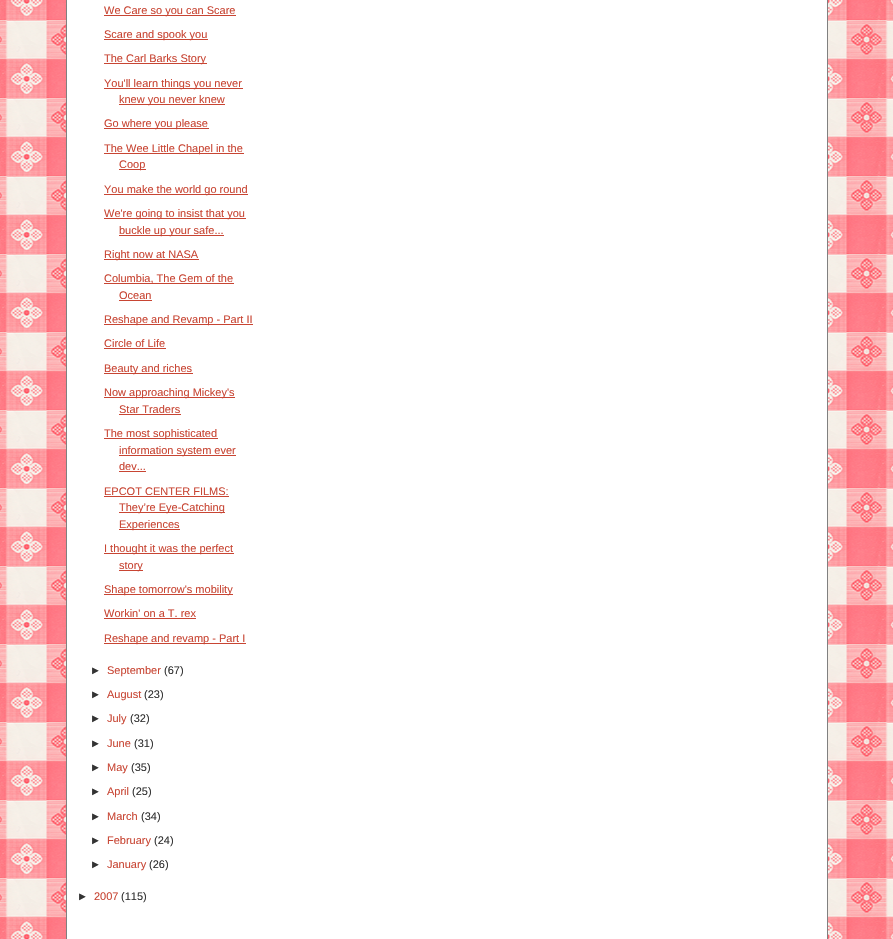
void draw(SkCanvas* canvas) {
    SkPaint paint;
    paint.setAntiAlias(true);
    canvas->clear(0xFFFFFFFF);
    canvas->drawImageRect(SkImages::DeferredFromEncodedData(SkData::MakeFromFileName("img1.png")), SkRect::MakeXYWH(0, 0, 893, 939), SkSamplingOptions());
    paint.setColor(0xFFFFFFFF);
    canvas->drawRect(SkRect::MakeXYWH(66.5f, -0.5f, 761, 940), paint);
    paint.setStyle(SkPaint::kStroke_Style);
    paint.setStrokeWidth(1);
    paint.setColor(0xFF808080);
    canvas->drawRect(SkRect::MakeXYWH(66.5f, -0.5f, 761, 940), paint);
    paint.setStyle(SkPaint::kFill_Style);
    paint.setColor(0xFFC84533);
    canvas->drawRect(SkRect::MakeXYWH(104, 15, 132, 1), paint);
    SkFont font1(fontMgr->matchFamilyStyle("Liberation Sans", SkFontStyle::Normal()), 11);
    font1.setSubpixel(true);
    canvas->drawString("We Care so you can Scare", 104, 14, font1, paint);
    canvas->drawRect(SkRect::MakeXYWH(104, 39, 104, 1), paint);
    canvas->drawString("Scare and spook you", 104, 38, font1, paint);
    canvas->drawRect(SkRect::MakeXYWH(104, 63, 103, 1), paint);
    canvas->drawString("The Carl Barks Story", 104, 62, font1, paint);
    canvas->drawRect(SkRect::MakeXYWH(104, 88, 139, 1), paint);
    canvas->drawString("You'll learn things you never", 104, 87, font1, paint);
    canvas->drawRect(SkRect::MakeXYWH(119, 104, 106, 1), paint);
    canvas->drawString("knew you never knew", 119, 103, font1, paint);
    canvas->drawRect(SkRect::MakeXYWH(104, 128, 105, 1), paint);
    canvas->drawString("Go where you please", 104, 127, font1, paint);
    canvas->drawRect(SkRect::MakeXYWH(104, 153, 140, 1), paint);
    canvas->drawString("The Wee Little Chapel in the", 104, 152, font1, paint);
    canvas->drawRect(SkRect::MakeXYWH(119, 169, 27, 1), paint);
    canvas->drawString("Coop", 119, 168, font1, paint);
    canvas->drawRect(SkRect::MakeXYWH(104, 194, 144, 1), paint);
    canvas->drawString("You make the world go round", 104, 193, font1, paint);
    canvas->drawRect(SkRect::MakeXYWH(104, 218, 142, 1), paint);
    canvas->drawString("We're going to insist that you", 104, 217, font1, paint);
    canvas->drawRect(SkRect::MakeXYWH(119, 235, 105, 1), paint);
    canvas->drawString("buckle up your safe...", 119, 234, font1, paint);
    canvas->drawRect(SkRect::MakeXYWH(104, 259, 95, 1), paint);
    canvas->drawString("Right now at NASA", 104, 258, font1, paint);
    canvas->drawRect(SkRect::MakeXYWH(104, 283, 130, 1), paint);
    canvas->drawString("Columbia, The Gem of the", 104, 282, font1, paint);
    canvas->drawString("Ocean", 119, 299, font1, paint);
    canvas->drawRect(SkRect::MakeXYWH(119, 300, 33, 1), paint);
    canvas->drawRect(SkRect::MakeXYWH(104, 324, 149, 1), paint);
    canvas->drawString("Reshape and Revamp - Part II", 104, 323, font1, paint);
    canvas->drawString("Circle of Life", 104, 347, font1, paint);
    canvas->drawRect(SkRect::MakeXYWH(104, 348, 62, 1), paint);
    canvas->drawRect(SkRect::MakeXYWH(104, 373, 89, 1), paint);
    canvas->drawString("Beauty and riches", 104, 372, font1, paint);
    canvas->drawRect(SkRect::MakeXYWH(104, 397, 131, 1), paint);
    canvas->drawString("Now approaching Mickey's", 104, 396, font1, paint);
    canvas->drawString("Star Traders", 119, 413, font1, paint);
    canvas->drawRect(SkRect::MakeXYWH(119, 414, 62, 1), paint);
    canvas->drawRect(SkRect::MakeXYWH(104, 438, 114, 1), paint);
    canvas->drawString("The most sophisticated", 104, 437, font1, paint);
    canvas->drawRect(SkRect::MakeXYWH(119, 455, 117, 1), paint);
    canvas->drawString("information system ever", 119, 454, font1, paint);
    canvas->drawString("dev...", 119, 470, font1, paint);
    canvas->drawRect(SkRect::MakeXYWH(119, 471, 27, 1), paint);
    canvas->drawString("EPCOT CENTER FILMS:", 104, 495, font1, paint);
    canvas->drawRect(SkRect::MakeXYWH(104, 496, 125, 1), paint);
    canvas->drawRect(SkRect::MakeXYWH(119, 512, 106, 1), paint);
    canvas->drawString("They’re Eye-Catching", 119, 511, font1, paint);
    canvas->drawRect(SkRect::MakeXYWH(119, 529, 61, 1), paint);
    canvas->drawString("Experiences", 119, 528, font1, paint);
    canvas->drawRect(SkRect::MakeXYWH(104, 553, 130, 1), paint);
    canvas->drawString("I thought it was the perfect", 104, 552, font1, paint);
    canvas->drawRect(SkRect::MakeXYWH(119, 570, 24, 1), paint);
    canvas->drawString("story", 119, 569, font1, paint);
    canvas->drawRect(SkRect::MakeXYWH(104, 594, 129, 1), paint);
    canvas->drawString("Shape tomorrow's mobility", 104, 593, font1, paint);
    canvas->drawString("Workin' on a T. rex", 104, 617, font1, paint);
    canvas->drawRect(SkRect::MakeXYWH(104, 618, 92, 1), paint);
    canvas->drawRect(SkRect::MakeXYWH(104, 643, 142, 1), paint);
    canvas->drawString("Reshape and revamp - Part I", 104, 642, font1, paint);
    paint.setColor(0xFF333333);
    canvas->drawString("►", 90, 674, font1, paint);
    paint.setColor(0xFFC84533);
    canvas->drawString("September", 107, 674, font1, paint);
    paint.setColor(0xFF333333);
    canvas->drawString("(67)", 164, 674, font1, paint);
    canvas->drawString("►", 90, 698, font1, paint);
    paint.setColor(0xFFC84533);
    canvas->drawString("August", 107, 698, font1, paint);
    paint.setColor(0xFF333333);
    canvas->drawString("(23)", 144, 698, font1, paint);
    canvas->drawString("►", 90, 722, font1, paint);
    paint.setColor(0xFFC84533);
    canvas->drawString("July", 107, 722, font1, paint);
    paint.setColor(0xFF333333);
    canvas->drawString("(32)", 130, 722, font1, paint);
    canvas->drawString("►", 90, 747, font1, paint);
    paint.setColor(0xFFC84533);
    canvas->drawString("June", 107, 747, font1, paint);
    paint.setColor(0xFF333333);
    canvas->drawString("(31)", 134, 747, font1, paint);
    canvas->drawString("►", 90, 771, font1, paint);
    paint.setColor(0xFFC84533);
    canvas->drawString("May", 107, 771, font1, paint);
    paint.setColor(0xFF333333);
    canvas->drawString("(35)", 131, 771, font1, paint);
    canvas->drawString("►", 90, 795, font1, paint);
    paint.setColor(0xFFC84533);
    canvas->drawString("April", 107, 795, font1, paint);
    paint.setColor(0xFF333333);
    canvas->drawString("(25)", 132, 795, font1, paint);
    canvas->drawString("►", 90, 820, font1, paint);
    paint.setColor(0xFFC84533);
    canvas->drawString("March", 107, 820, font1, paint);
    paint.setColor(0xFF333333);
    canvas->drawString("(34)", 141, 820, font1, paint);
    canvas->drawString("►", 90, 844, font1, paint);
    paint.setColor(0xFFC84533);
    canvas->drawString("February", 107, 844, font1, paint);
    paint.setColor(0xFF333333);
    canvas->drawString("(24)", 154, 844, font1, paint);
    canvas->drawString("►", 90, 868, font1, paint);
    paint.setColor(0xFFC84533);
    canvas->drawString("January", 107, 868, font1, paint);
    paint.setColor(0xFF333333);
    canvas->drawString("(26)", 149, 868, font1, paint);
    canvas->drawString("►", 77, 900, font1, paint);
    paint.setColor(0xFFC84533);
    canvas->drawString("2007", 94, 900, font1, paint);
    paint.setColor(0xFF333333);
    canvas->drawString("(115)", 121, 900, font1, paint);
}
